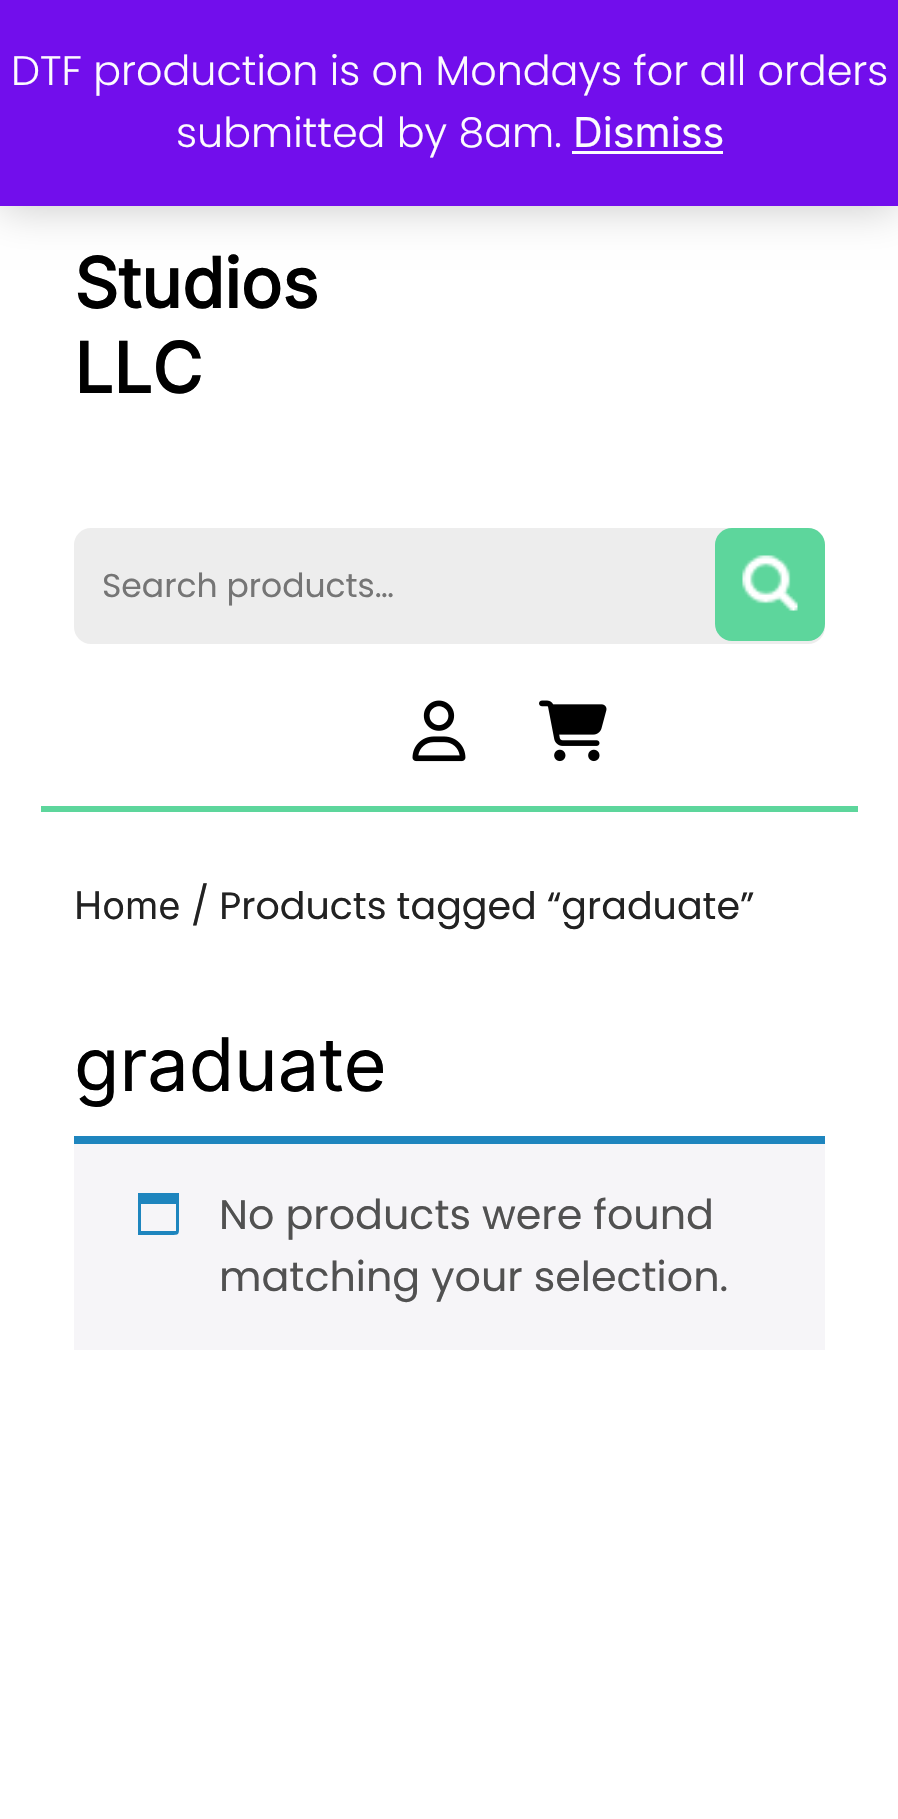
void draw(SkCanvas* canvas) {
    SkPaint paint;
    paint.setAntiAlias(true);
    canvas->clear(0xFFFFFFFF);
    paint.setColor(0x33000000);
    paint.setMaskFilter(SkMaskFilter::MakeBlur(kNormal_SkBlurStyle, 20.5f));
    canvas->drawRect(SkRect::MakeXYWH(0, 3, 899, 206), paint);
    paint.setMaskFilter(nullptr);
    paint.setColor(0xFF720EEC);
    canvas->drawRect(SkRect::MakeXYWH(0, 0, 898, 206), paint);
    SkFont font1(fontMgr->matchFamilyStyle("Poppins", SkFontStyle(300, SkFontStyle::kNormal_Width, SkFontStyle::kUpright_Slant)), 41.25f);
    font1.setSubpixel(true);
    paint.setColor(0xFFFCFBFE);
    canvas->drawString("DTF production is on Mondays for all orders", 11, 85, font1, paint);
    canvas->drawString("submitted by 8am.", 176, 147, font1, paint);
    SkFont font2(fontMgr->matchFamilyStyle("Inter", SkFontStyle::Normal()), 41.25f);
    font2.setSubpixel(true);
    canvas->drawString("Dismiss", 573, 147, font2, paint);
    canvas->drawRect(SkRect::MakeXYWH(572, 151, 151, 3), paint);
    paint.setColor(0xFF5DD69C);
    canvas->drawRect(SkRect::MakeXYWH(41, 806, 817, 6), paint);
    SkFont font3(fontMgr->matchFamilyStyle("Inter", SkFontStyle::Bold()), 69);
    font3.setSubpixel(true);
    paint.setColor(0xFF000000);
    canvas->drawString("Studios", 74, 308, font3, paint);
    canvas->drawString("LLC", 74, 393, font3, paint);
    paint.setColor(0xFFEDEDED);
    canvas->drawRoundRect(SkRect::MakeXYWH(74, 528, 751, 116), 17, 17, paint);
    SkFont font4(fontMgr->matchFamilyStyle("Poppins", SkFontStyle::Normal()), 33);
    font4.setSubpixel(true);
    paint.setColor(0xFF757575);
    canvas->drawString("Search products…", 102, 597, font4, paint);
    paint.setColor(0xFF5DD69C);
    canvas->drawRoundRect(SkRect::MakeXYWH(715, 528, 110, 113), 17, 17, paint);
    canvas->drawImageRect(SkImages::DeferredFromEncodedData(SkData::MakeFromFileName("img1.png")), SkRect::MakeXYWH(742, 555, 56, 56), SkSamplingOptions());
    canvas->drawImageRect(SkImages::DeferredFromEncodedData(SkData::MakeFromFileName("img2.png")), SkRect::MakeXYWH(412, 700, 54, 62), SkSamplingOptions());
    canvas->drawImageRect(SkImages::DeferredFromEncodedData(SkData::MakeFromFileName("img3.png")), SkRect::MakeXYWH(539, 700, 68, 62), SkSamplingOptions());
    SkFont font5(fontMgr->matchFamilyStyle("Inter", SkFontStyle::Normal()), 38);
    font5.setSubpixel(true);
    paint.setColor(0xFF222222);
    canvas->drawString("Home", 74, 919, font5, paint);
    SkFont font6(fontMgr->matchFamilyStyle("Poppins", SkFontStyle::Normal()), 38);
    font6.setSubpixel(true);
    canvas->drawString("/ Products tagged “graduate”", 191, 919, font6, paint);
    SkFont font7(fontMgr->matchFamilyStyle("Inter", SkFontStyle::Normal()), 74);
    font7.setSubpixel(true);
    paint.setColor(0xFF000000);
    canvas->drawString("graduate", 74, 1091, font7, paint);
    paint.setColor(0xFFF6F5F8);
    canvas->drawRect(SkRect::MakeXYWH(74, 1144, 751, 206), paint);
    paint.setColor(0xFF1E85BE);
    canvas->drawRect(SkRect::MakeXYWH(74, 1136, 751, 8), paint);
    canvas->drawPath(SkPathBuilder().moveTo(176, 1204).lineTo(141, 1204).lineTo(141, 1231).lineTo(176, 1231).close().moveTo(179, 1193).lineTo(179, 1225).cubicTo(179, 1235, 180, 1235, 169, 1235).lineTo(138, 1235).lineTo(138, 1193).close().detach(), paint);
    SkFont font8(fontMgr->matchFamilyStyle("Poppins", SkFontStyle::Normal()), 41.25f);
    font8.setSubpixel(true);
    paint.setColor(0xFF515151);
    canvas->drawString("No products were found", 219, 1229, font8, paint);
    canvas->drawString("matching your selection.", 219, 1291, font8, paint);
}
